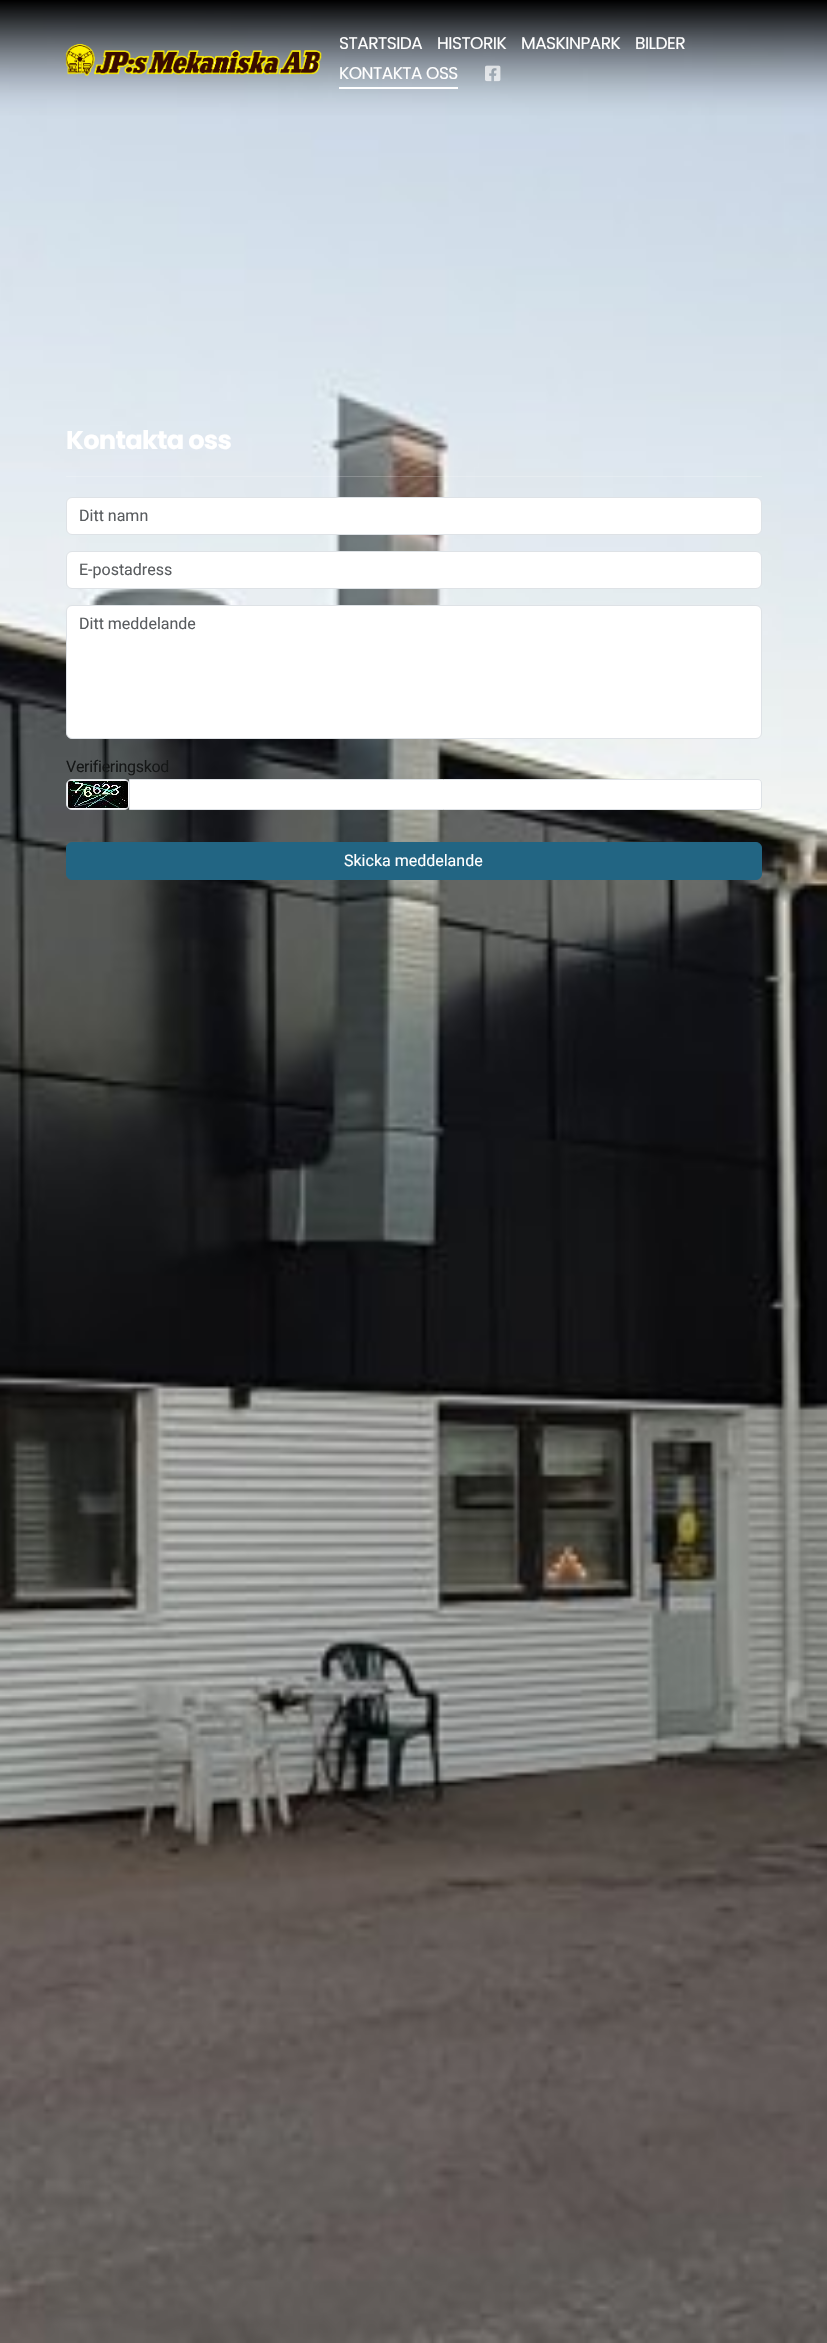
void draw(SkCanvas* canvas) {
    SkPaint paint;
    paint.setAntiAlias(true);
    auto spacedText = [&](const char* s, float x, float y, const SkFont& font, const SkPaint& ink, float letter, float word) {
        std::vector<SkGlyphID> glyphs(font.countText(s, strlen(s), SkTextEncoding::kUTF8));
        std::vector<float> xs(glyphs.size());
        font.textToGlyphs(s, strlen(s), SkTextEncoding::kUTF8, glyphs);
        font.getXPos(glyphs, xs, x);
        float extra = 0;
        for (size_t i = 0; i < glyphs.size(); i++) {
            xs[i] += extra;
            extra += letter + word * (glyphs[i] == font.unicharToGlyph(' '));
        }
        canvas->drawTextBlob(SkTextBlob::MakeFromPosHGlyphs(glyphs, xs, y, font), 0, 0, ink);
    };
    canvas->clear(0xFFFFFFFF);
    canvas->drawImageRect(SkImages::DeferredFromEncodedData(SkData::MakeFromFileName("img3.png")), SkRect::MakeXYWH(0, 0, 827, 2343), SkSamplingOptions());
    canvas->drawImageRect(SkImages::DeferredFromEncodedData(SkData::MakeFromFileName("img1.png")), SkRect::MakeXYWH(65, 44, 257, 32), SkSamplingOptions());
    SkFont font1(fontMgr->matchFamilyStyle("Poppins", SkFontStyle::Normal()), 17);
    font1.setSubpixel(true);
    paint.setColor(0xFFFFFFFF);
    spacedText("STARTSIDA", 339, 49, font1, paint, -0.5f, 0);
    spacedText("HISTORIK", 437, 49, font1, paint, -0.5f, 0);
    spacedText("MASKINPARK", 521, 49, font1, paint, -0.5f, 0);
    spacedText("BILDER", 635, 49, font1, paint, -0.5f, 0);
    canvas->drawRect(SkRect::MakeXYWH(339, 87, 119, 2), paint);
    spacedText("KONTAKTA OSS", 339, 79, font1, paint, -0.5f, 0);
    canvas->drawImageRect(SkImages::DeferredFromEncodedData(SkData::MakeFromFileName("img2.png")), SkRect::MakeXYWH(485, 65, 16, 17), SkSamplingOptions());
    paint.setColor(0x33FFFFFF);
    canvas->drawRect(SkRect::MakeXYWH(66, 476, 696, 1), paint);
    SkFont font2(fontMgr->matchFamilyStyle("Poppins", SkFontStyle::Bold()), 25.75f);
    font2.setSubpixel(true);
    paint.setColor(0xFFFFFFFF);
    spacedText("Kontakta oss", 66, 449, font2, paint, -0.75f, 0);
    canvas->drawRoundRect(SkRect::MakeXYWH(66.5f, 497.5f, 695, 37), 5.5f, 5.5f, paint);
    paint.setStyle(SkPaint::kStroke_Style);
    paint.setStrokeWidth(1);
    paint.setColor(0xFFDEE2E6);
    canvas->drawRoundRect(SkRect::MakeXYWH(66.5f, 497.5f, 695, 37), 5.5f, 5.5f, paint);
    SkFont font3(fontMgr->matchFamilyStyle("Roboto", SkFontStyle::Normal()), 16);
    font3.setSubpixel(true);
    paint.setStyle(SkPaint::kFill_Style);
    paint.setColor(0xFF595C5F);
    canvas->drawString("Ditt namn", 79, 521, font3, paint);
    paint.setColor(0xFFFFFFFF);
    canvas->drawRoundRect(SkRect::MakeXYWH(66.5f, 551.5f, 695, 37), 5.5f, 5.5f, paint);
    paint.setStyle(SkPaint::kStroke_Style);
    paint.setColor(0xFFDEE2E6);
    canvas->drawRoundRect(SkRect::MakeXYWH(66.5f, 551.5f, 695, 37), 5.5f, 5.5f, paint);
    paint.setStyle(SkPaint::kFill_Style);
    paint.setColor(0xFF595C5F);
    canvas->drawString("E-postadress", 79, 575, font3, paint);
    paint.setColor(0xFFFFFFFF);
    canvas->drawRoundRect(SkRect::MakeXYWH(66.5f, 605.5f, 695, 133), 5.5f, 5.5f, paint);
    paint.setStyle(SkPaint::kStroke_Style);
    paint.setColor(0xFFDEE2E6);
    canvas->drawRoundRect(SkRect::MakeXYWH(66.5f, 605.5f, 695, 133), 5.5f, 5.5f, paint);
    paint.setStyle(SkPaint::kFill_Style);
    paint.setColor(0xFF595C5F);
    canvas->drawString("Ditt meddelande", 79, 629, font3, paint);
    paint.setColor(0xFF151717);
    spacedText("Verifieringskod", 66, 772, font3, paint, -0.3f, 0);
    paint.setColor(0xFFF8F9FA);
    canvas->drawRoundRect(SkRect::MakeXYWH(66.5f, 779.5f, 63, 30), 5.5f, 5.5f, paint);
    paint.setStyle(SkPaint::kStroke_Style);
    paint.setColor(0xFFDEE2E6);
    canvas->drawRoundRect(SkRect::MakeXYWH(66.5f, 779.5f, 63, 30), 5.5f, 5.5f, paint);
    canvas->drawImageRect(SkImages::DeferredFromEncodedData(SkData::MakeFromFileName("img4.png")), SkRect::MakeXYWH(68, 781, 60, 27), SkSamplingOptions());
    paint.setStyle(SkPaint::kFill_Style);
    paint.setColor(0xFFFFFFFF);
    canvas->drawPath(SkPathBuilder().moveTo(129.5f, 779.5f).lineTo(758, 779.5f).cubicTo(760, 779.5f, 761.5f, 781, 761.5f, 783).lineTo(761.5f, 806).cubicTo(761.5f, 808, 760, 809.5f, 758, 809.5f).lineTo(129.5f, 809.5f).close().detach(), paint);
    paint.setStyle(SkPaint::kStroke_Style);
    paint.setColor(0xFFDEE2E6);
    canvas->drawPath(SkPathBuilder().moveTo(129.5f, 779.5f).lineTo(758, 779.5f).cubicTo(760, 779.5f, 761.5f, 781, 761.5f, 783).lineTo(761.5f, 806).cubicTo(761.5f, 808, 760, 809.5f, 758, 809.5f).lineTo(129.5f, 809.5f).close().detach(), paint);
    paint.setStyle(SkPaint::kFill_Style);
    paint.setColor(0xFF226583);
    canvas->drawRoundRect(SkRect::MakeXYWH(66.5f, 842.5f, 695, 37), 5.5f, 5.5f, paint);
    paint.setStyle(SkPaint::kStroke_Style);
    canvas->drawRoundRect(SkRect::MakeXYWH(66.5f, 842.5f, 695, 37), 5.5f, 5.5f, paint);
    paint.setStyle(SkPaint::kFill_Style);
    paint.setColor(0xFFFFFFFF);
    canvas->drawString("Skicka meddelande", 344, 866, font3, paint);
}
